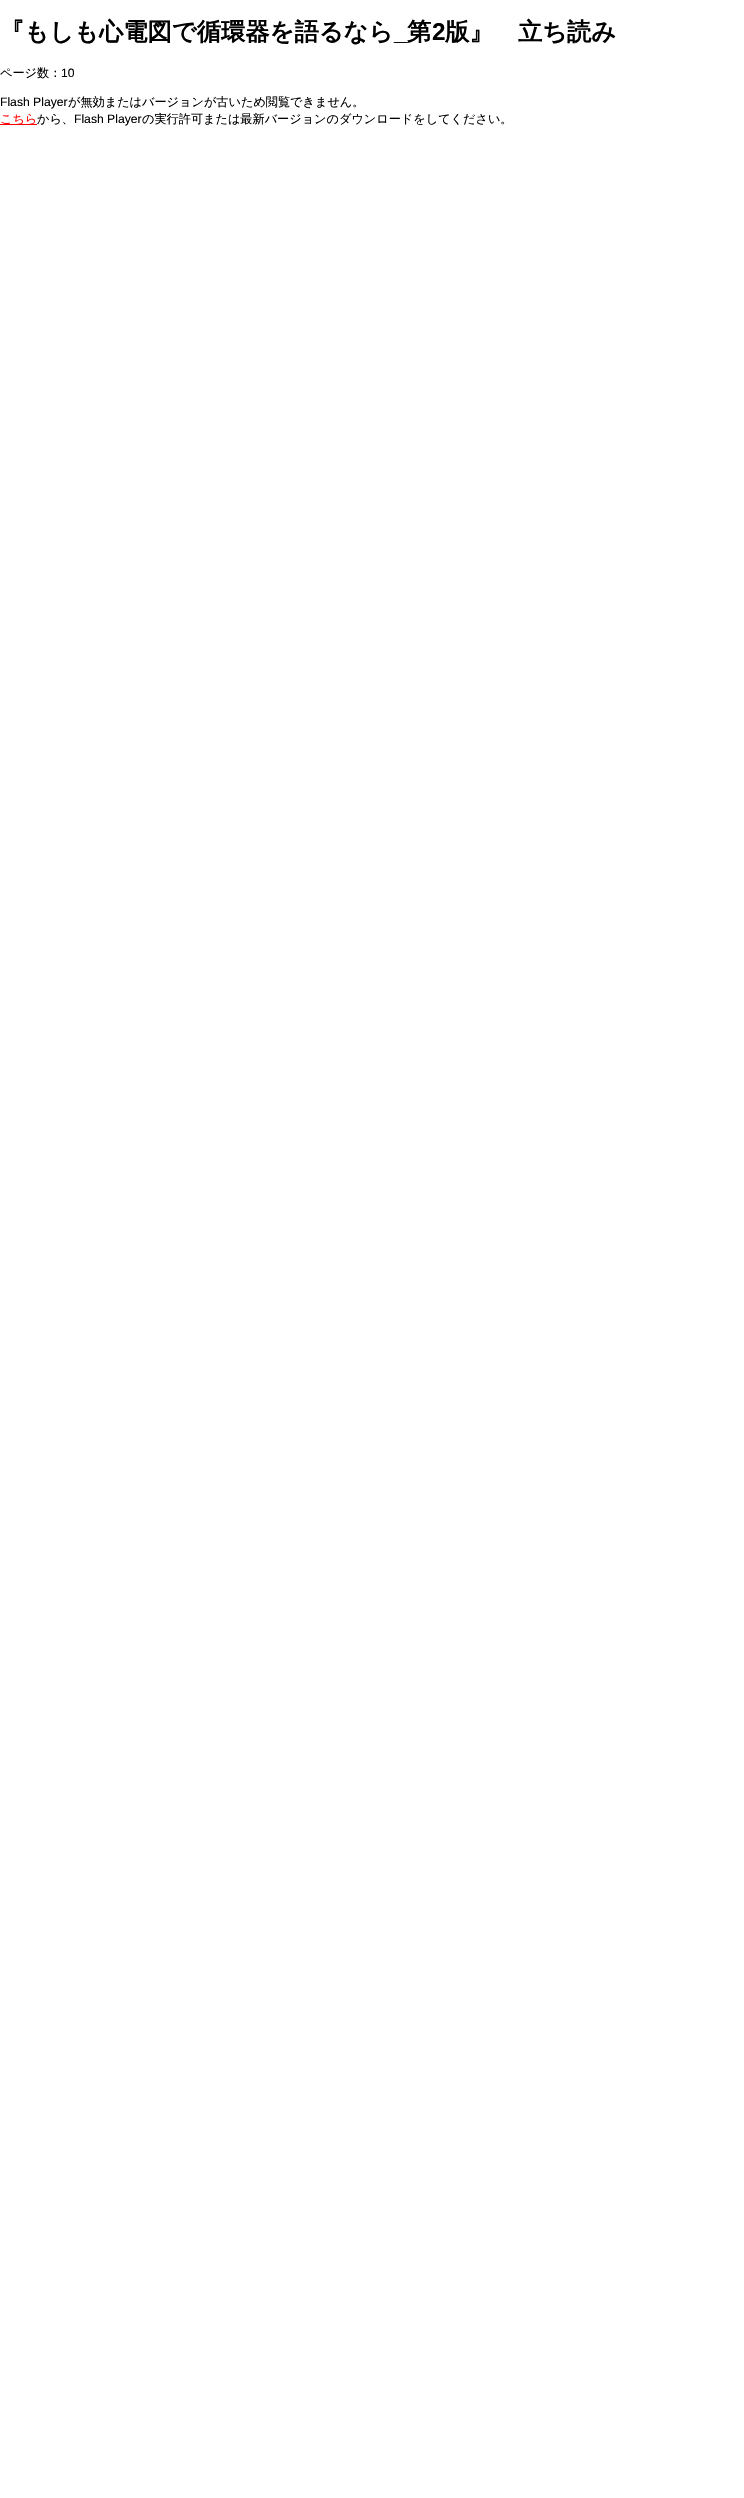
void draw(SkCanvas* canvas) {
    SkPaint paint;
    paint.setAntiAlias(true);
    canvas->clear(0xFFFFFFFF);
    SkFont font1(fontMgr->matchFamilyStyle("WenQuanYi Zen Hei", SkFontStyle::Bold()), 24.3f);
    font1.setSubpixel(true);
    paint.setColor(0xFF000000);
    canvas->drawString("『もしも心電図で循環器を語るなら", 0, 40, font1, paint);
    SkFont font2(fontMgr->matchFamilyStyle("Liberation Sans", SkFontStyle::Bold()), 24.3f);
    font2.setSubpixel(true);
    canvas->drawString("_", 394, 40, font2, paint);
    canvas->drawString("第", 407, 40, font1, paint);
    canvas->drawString("2", 432, 40, font2, paint);
    canvas->drawString("版』　立ち読み", 445, 40, font1, paint);
    SkFont font3(fontMgr->matchFamilyStyle("WenQuanYi Zen Hei", SkFontStyle(500, SkFontStyle::kNormal_Width, SkFontStyle::kUpright_Slant)), 12.15f);
    font3.setSubpixel(true);
    canvas->drawString("ページ数：", 0, 77, font3, paint);
    SkFont font4(fontMgr->matchFamilyStyle("Liberation Sans", SkFontStyle::Normal()), 12.15f);
    font4.setSubpixel(true);
    canvas->drawString("10", 61, 77, font4, paint);
    canvas->drawString("Flash Player", 0, 106, font4, paint);
    canvas->drawString("が無効またはバージョンが古いため閲覧できません。", 68, 106, font3, paint);
    paint.setColor(0xFFFF0000);
    canvas->drawRect(SkRect::MakeXYWH(0, 124, 37, 1), paint);
    canvas->drawString("こちら", 0, 123, font3, paint);
    paint.setColor(0xFF000000);
    canvas->drawString("から、", 37, 123, font3, paint);
    canvas->drawString("Flash Player", 74, 123, font4, paint);
    canvas->drawString("の実行許可または最新バージョンのダウンロードをしてください。", 142, 123, font3, paint);
}
